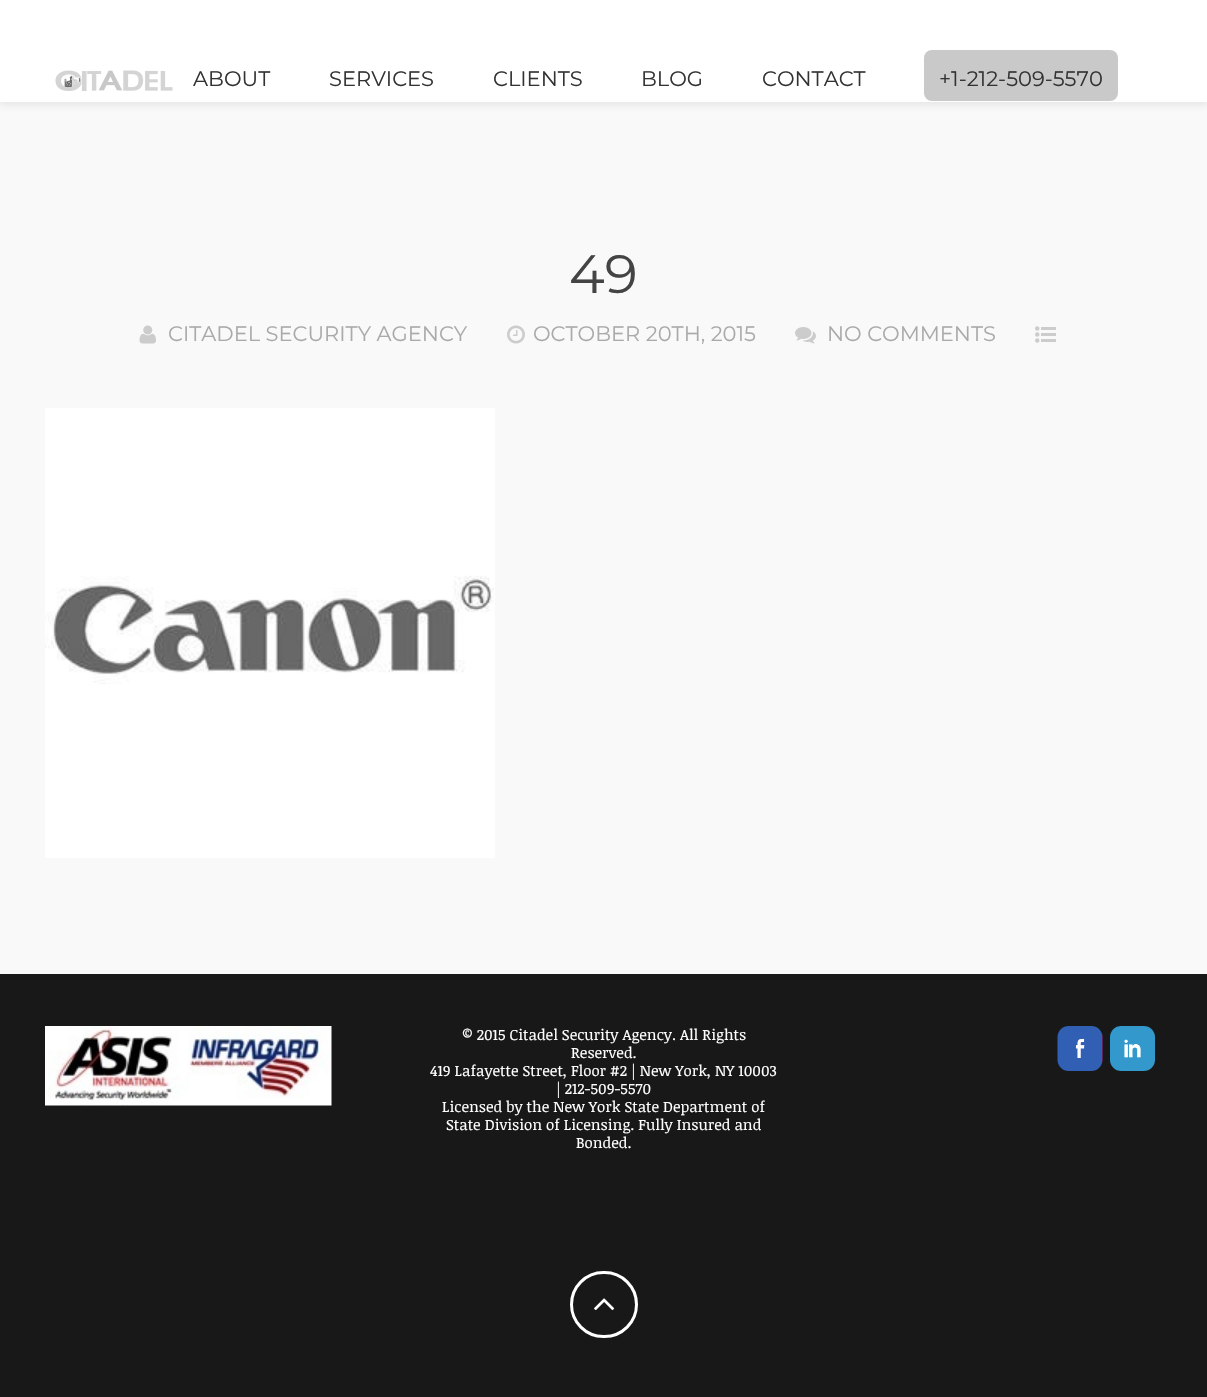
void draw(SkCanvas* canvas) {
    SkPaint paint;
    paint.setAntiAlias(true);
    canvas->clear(0xFFF9F9F9);
    paint.setColor(0x1A323232);
    paint.setMaskFilter(SkMaskFilter::MakeBlur(kNormal_SkBlurStyle, 4));
    canvas->drawRect(SkRect::MakeXYWH(0, 3, 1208, 102), paint);
    paint.setMaskFilter(nullptr);
    paint.setColor(0xFFFFFFFF);
    canvas->drawRect(SkRect::MakeXYWH(0, 0, 1207, 102), paint);
    canvas->drawImageRect(SkImages::DeferredFromEncodedData(SkData::MakeFromFileName("img1.png")), SkRect::MakeXYWH(55, 70, 118, 21), SkSamplingOptions());
    SkFont font1(fontMgr->matchFamilyStyle("Montserrat", SkFontStyle(100, SkFontStyle::kNormal_Width, SkFontStyle::kUpright_Slant)), 21);
    font1.setSubpixel(true);
    paint.setColor(0xFF333333);
    canvas->drawString("ABOUT", 193, 86, font1, paint);
    canvas->drawString("SERVICES", 329, 86, font1, paint);
    canvas->drawString("CLIENTS", 493, 86, font1, paint);
    canvas->drawString("BLOG", 641, 86, font1, paint);
    canvas->drawString("CONTACT", 762, 86, font1, paint);
    paint.setColor(0xFFC9C9C9);
    canvas->drawRoundRect(SkRect::MakeXYWH(924, 50, 194, 51), 8, 8, paint);
    paint.setColor(0xFF333333);
    canvas->drawString("+1-212-509-5570", 939, 86, font1, paint);
    SkFont font2(fontMgr->matchFamilyStyle("Montserrat", SkFontStyle(100, SkFontStyle::kNormal_Width, SkFontStyle::kUpright_Slant)), 54);
    font2.setSubpixel(true);
    paint.setColor(0xFF444444);
    canvas->drawString("49", 569, 293, font2, paint);
    canvas->drawImageRect(SkImages::DeferredFromEncodedData(SkData::MakeFromFileName("img2.png")), SkRect::MakeXYWH(139, 325, 17, 19), SkSamplingOptions());
    paint.setColor(0xFFAAAAAA);
    canvas->drawString("CITADEL SECURITY AGENCY", 168, 341, font1, paint);
    canvas->drawImageRect(SkImages::DeferredFromEncodedData(SkData::MakeFromFileName("img3.png")), SkRect::MakeXYWH(507, 325, 18, 19), SkSamplingOptions());
    canvas->drawString("OCTOBER 20TH, 2015", 533, 341, font1, paint);
    canvas->drawImageRect(SkImages::DeferredFromEncodedData(SkData::MakeFromFileName("img4.png")), SkRect::MakeXYWH(795, 327, 21, 17), SkSamplingOptions());
    canvas->drawString("NO COMMENTS", 827, 341, font1, paint);
    canvas->drawImageRect(SkImages::DeferredFromEncodedData(SkData::MakeFromFileName("img5.png")), SkRect::MakeXYWH(1035, 326, 21, 17), SkSamplingOptions());
    canvas->drawImageRect(SkImages::DeferredFromEncodedData(SkData::MakeFromFileName("img6.png")), SkRect::MakeXYWH(45, 408, 450, 450), SkSamplingOptions());
    paint.setColor(0xFF181818);
    canvas->drawRect(SkRect::MakeXYWH(0, 974, 1207, 423), paint);
    canvas->drawImageRect(SkImages::DeferredFromEncodedData(SkData::MakeFromFileName("img7.png")), SkRect::MakeXYWH(45, 1026, 287, 80), SkSamplingOptions());
    SkFont font3(fontMgr->matchFamilyStyle("Noticia Text", SkFontStyle::Normal()), 15);
    font3.setSubpixel(true);
    paint.setColor(0xFFFFFFFF);
    canvas->drawString("© 2015 Citadel Security Agency. All Rights", 462, 1040, font3, paint);
    canvas->drawString("Reserved.", 571, 1058, font3, paint);
    canvas->drawString("419 Lafayette Street, Floor #2 | New York, NY 10003", 430, 1076, font3, paint);
    canvas->drawString("| 212-509-5570", 556, 1094, font3, paint);
    canvas->drawString("Licensed by the New York State Department of", 442, 1112, font3, paint);
    canvas->drawString("State Division of Licensing. Fully Insured and", 446, 1130, font3, paint);
    canvas->drawString("Bonded.", 576, 1148, font3, paint);
    canvas->drawImageRect(SkImages::DeferredFromEncodedData(SkData::MakeFromFileName("img8.png")), SkRect::MakeXYWH(1057, 1026, 46, 45), SkSamplingOptions());
    canvas->drawImageRect(SkImages::DeferredFromEncodedData(SkData::MakeFromFileName("img9.png")), SkRect::MakeXYWH(1109, 1026, 47, 45), SkSamplingOptions());
    paint.setStyle(SkPaint::kStroke_Style);
    paint.setStrokeWidth(3);
    canvas->drawRoundRect(SkRect::MakeXYWH(571.5f, 1272.5f, 65, 64), 32, 32, paint);
    canvas->drawImageRect(SkImages::DeferredFromEncodedData(SkData::MakeFromFileName("img10.png")), SkRect::MakeXYWH(594, 1298, 21, 12), SkSamplingOptions());
}
